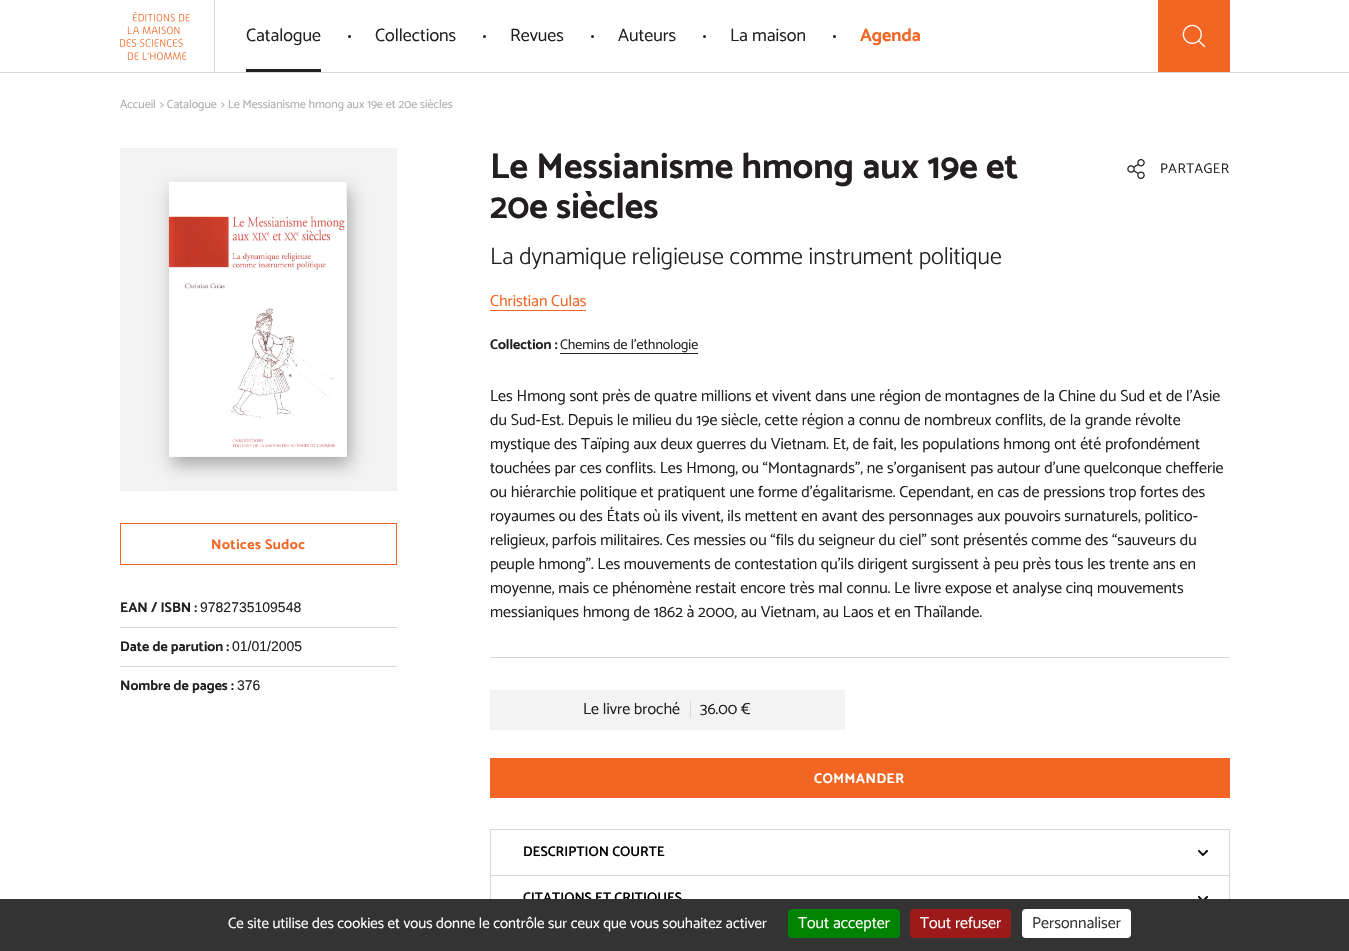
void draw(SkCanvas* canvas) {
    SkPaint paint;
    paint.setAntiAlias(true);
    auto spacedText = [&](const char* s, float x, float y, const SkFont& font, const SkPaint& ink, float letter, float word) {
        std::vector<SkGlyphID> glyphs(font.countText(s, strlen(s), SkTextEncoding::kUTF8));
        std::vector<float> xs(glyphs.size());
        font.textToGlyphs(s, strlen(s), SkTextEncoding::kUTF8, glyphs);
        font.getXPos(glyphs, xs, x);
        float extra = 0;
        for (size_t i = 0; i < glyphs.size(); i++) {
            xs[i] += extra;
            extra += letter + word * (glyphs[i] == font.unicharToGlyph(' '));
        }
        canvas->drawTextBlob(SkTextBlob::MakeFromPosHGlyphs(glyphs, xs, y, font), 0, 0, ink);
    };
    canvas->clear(0xFFFFFFFF);
    paint.setColor(0xFFD8D8D8);
    canvas->drawRect(SkRect::MakeXYWH(0, 72, 1349, 1), paint);
    canvas->drawRect(SkRect::MakeXYWH(214, 0, 1, 72), paint);
    canvas->drawImageRect(SkImages::DeferredFromEncodedData(SkData::MakeFromFileName("img1.png")), SkRect::MakeXYWH(120, 12, 70, 48), SkSamplingOptions());
    SkFont font1(fontMgr->matchFamilyStyle("Catamaran", SkFontStyle(100, SkFontStyle::kNormal_Width, SkFontStyle::kUpright_Slant)), 18);
    font1.setSubpixel(true);
    paint.setColor(0xFF231F20);
    canvas->drawString("Catalogue", 246, 41, font1, paint);
    canvas->drawRect(SkRect::MakeXYWH(246, 69, 75, 3), paint);
    canvas->drawCircle(349.5f, 36.5f, 1.5f, paint);
    canvas->drawString("Collections", 375, 41, font1, paint);
    canvas->drawCircle(484.5f, 36.5f, 1.5f, paint);
    canvas->drawString("Revues", 510, 41, font1, paint);
    canvas->drawCircle(592.5f, 36.5f, 1.5f, paint);
    canvas->drawString("Auteurs", 618, 41, font1, paint);
    canvas->drawCircle(704.5f, 36.5f, 1.5f, paint);
    canvas->drawString("La maison", 730, 41, font1, paint);
    canvas->drawCircle(834.5f, 36.5f, 1.5f, paint);
    SkFont font2(fontMgr->matchFamilyStyle("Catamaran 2", SkFontStyle(100, SkFontStyle::kNormal_Width, SkFontStyle::kUpright_Slant)), 18);
    font2.setSubpixel(true);
    paint.setColor(0xFFF26522);
    canvas->drawString("Agenda", 860, 41, font2, paint);
    canvas->drawRect(SkRect::MakeXYWH(1158, 0, 72, 72), paint);
    canvas->drawImageRect(SkImages::DeferredFromEncodedData(SkData::MakeFromFileName("img2.png")), SkRect::MakeXYWH(1182, 24, 24, 24), SkSamplingOptions());
    SkFont font3(fontMgr->matchFamilyStyle("Catamaran", SkFontStyle(100, SkFontStyle::kNormal_Width, SkFontStyle::kUpright_Slant)), 12);
    font3.setSubpixel(true);
    paint.setColor(0xFFACACAC);
    canvas->drawString("Accueil", 120, 108, font3, paint);
    canvas->drawString("> Catalogue", 160, 108, font3, paint);
    canvas->drawString("> Le Messianisme hmong aux 19e et 20e siècles", 221, 108, font3, paint);
    paint.setColor(0xFFF3F3F3);
    canvas->drawRect(SkRect::MakeXYWH(120, 148, 277, 343), paint);
    paint.setColor(0x4D000000);
    paint.setMaskFilter(SkMaskFilter::MakeBlur(kNormal_SkBlurStyle, 8));
    canvas->drawRect(SkRect::MakeXYWH(172, 190, 178, 275), paint);
    paint.setMaskFilter(nullptr);
    canvas->drawImageRect(SkImages::DeferredFromEncodedData(SkData::MakeFromFileName("img3.png")), SkRect::MakeXYWH(168, 182, 179, 275), SkSamplingOptions());
    paint.setStyle(SkPaint::kStroke_Style);
    paint.setStrokeWidth(1);
    paint.setColor(0xFFF26522);
    canvas->drawRect(SkRect::MakeXYWH(120.5f, 523.5f, 276, 41), paint);
    SkFont font4(fontMgr->matchFamilyStyle("Catamaran 2", SkFontStyle(100, SkFontStyle::kNormal_Width, SkFontStyle::kUpright_Slant)), 14);
    font4.setSubpixel(true);
    paint.setStyle(SkPaint::kFill_Style);
    spacedText("Notices Sudoc", 211, 549, font4, paint, 0.5f, 0);
    paint.setColor(0xFF231F20);
    canvas->drawString("EAN / ISBN :", 120, 612, font4, paint);
    SkFont font5(fontMgr->matchFamilyStyle("Liberation Sans", SkFontStyle::Normal()), 14);
    font5.setSubpixel(true);
    canvas->drawString("9782735109548", 200, 612, font5, paint);
    paint.setColor(0xFFD8D8D8);
    canvas->drawRect(SkRect::MakeXYWH(120, 627, 277, 1), paint);
    paint.setColor(0xFF231F20);
    canvas->drawString("Date de parution :", 120, 651, font4, paint);
    canvas->drawString("01/01/2005", 232, 651, font5, paint);
    paint.setColor(0xFFD8D8D8);
    canvas->drawRect(SkRect::MakeXYWH(120, 666, 277, 1), paint);
    paint.setColor(0xFF231F20);
    canvas->drawString("Nombre de pages :", 120, 690, font4, paint);
    canvas->drawString("376", 237, 690, font5, paint);
    SkFont font6(fontMgr->matchFamilyStyle("Catamaran 2", SkFontStyle(100, SkFontStyle::kNormal_Width, SkFontStyle::kUpright_Slant)), 36);
    font6.setSubpixel(true);
    canvas->drawString("Le Messianisme hmong aux 19e et", 490, 178, font6, paint);
    canvas->drawString("20e siècles", 490, 218, font6, paint);
    SkFont font7(fontMgr->matchFamilyStyle("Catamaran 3", SkFontStyle(100, SkFontStyle::kNormal_Width, SkFontStyle::kUpright_Slant)), 24);
    font7.setSubpixel(true);
    canvas->drawString("La dynamique religieuse comme instrument politique", 490, 264, font7, paint);
    canvas->drawImageRect(SkImages::DeferredFromEncodedData(SkData::MakeFromFileName("img4.png")), SkRect::MakeXYWH(1127, 159, 18, 20), SkSamplingOptions());
    SkFont font8(fontMgr->matchFamilyStyle("Catamaran", SkFontStyle(100, SkFontStyle::kNormal_Width, SkFontStyle::kUpright_Slant)), 14);
    font8.setSubpixel(true);
    spacedText("PARTAGER", 1160, 173, font8, paint, 0.5f, 0);
    SkFont font9(fontMgr->matchFamilyStyle("Catamaran", SkFontStyle(100, SkFontStyle::kNormal_Width, SkFontStyle::kUpright_Slant)), 16);
    font9.setSubpixel(true);
    paint.setColor(0xFFF26522);
    canvas->drawString("Christian Culas", 490, 306, font9, paint);
    canvas->drawRect(SkRect::MakeXYWH(490, 310, 96, 1), paint);
    paint.setColor(0xFF231F20);
    canvas->drawString("Collection :", 490, 349, font4, paint);
    canvas->drawString("Chemins de l'ethnologie", 560, 349, font8, paint);
    canvas->drawRect(SkRect::MakeXYWH(560, 353, 138, 1), paint);
    canvas->drawString("Les Hmong sont près de quatre millions et vivent dans une région de montagnes de la Chine du Sud et de l’Asie", 490, 401, font9, paint);
    canvas->drawString("du Sud-Est. Depuis le milieu du 19e siècle, cette région a connu de nombreux conflits, de la grande révolte", 490, 425, font9, paint);
    canvas->drawString("mystique des Taïping aux deux guerres du Vietnam. Et, de fait, les populations hmong ont été profondément", 490, 449, font9, paint);
    canvas->drawString("touchées par ces conflits. Les Hmong, ou “Montagnards”, ne s’organisent pas autour d’une quelconque chefferie", 490, 473, font9, paint);
    canvas->drawString("ou hiérarchie politique et pratiquent une forme d’égalitarisme. Cependant, en cas de pressions trop fortes des", 490, 497, font9, paint);
    canvas->drawString("royaumes ou des États où ils vivent, ils mettent en avant des personnages aux pouvoirs surnaturels, politico-", 490, 521, font9, paint);
    canvas->drawString("religieux, parfois militaires. Ces messies ou “fils du seigneur du ciel” sont présentés comme des “sauveurs du", 490, 545, font9, paint);
    canvas->drawString("peuple hmong”. Les mouvements de contestation qu’ils dirigent surgissent à peu près tous les trente ans en", 490, 569, font9, paint);
    canvas->drawString("moyenne, mais ce phénomène restait encore très mal connu. Le livre expose et analyse cinq mouvements", 490, 593, font9, paint);
    canvas->drawString("messianiques hmong de 1862 à 2000, au Vietnam, au Laos et en Thaïlande.", 490, 617, font9, paint);
    paint.setColor(0xFFD8D8D8);
    canvas->drawRect(SkRect::MakeXYWH(490, 657, 740, 1), paint);
    paint.setColor(0xFFF3F3F3);
    canvas->drawRect(SkRect::MakeXYWH(490, 690, 355, 40), paint);
    paint.setColor(0xFF231F20);
    canvas->drawString("Le livre broché", 583, 714, font9, paint);
    paint.setColor(0xFFD8D8D8);
    canvas->drawRect(SkRect::MakeXYWH(690, 701, 1, 17), paint);
    paint.setColor(0xFF231F20);
    canvas->drawString("36.00 €", 700, 714, font9, paint);
    paint.setColor(0xFFF26522);
    canvas->drawRect(SkRect::MakeXYWH(490, 758, 740, 40), paint);
    paint.setColor(0xFFFFFFFF);
    spacedText("COMMANDER", 814, 783, font4, paint, 0.5f, 0);
    paint.setStyle(SkPaint::kStroke_Style);
    paint.setColor(0xFFD8D8D8);
    canvas->drawRect(SkRect::MakeXYWH(490.5f, 829.5f, 739, 46), paint);
    SkFont font10(fontMgr->matchFamilyStyle("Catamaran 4", SkFontStyle(100, SkFontStyle::kNormal_Width, SkFontStyle::kUpright_Slant)), 14);
    font10.setSubpixel(true);
    paint.setStyle(SkPaint::kFill_Style);
    paint.setColor(0xFF000000);
    canvas->drawString("DESCRIPTION COURTE", 523, 856, font10, paint);
    canvas->drawImageRect(SkImages::DeferredFromEncodedData(SkData::MakeFromFileName("img5.png")), SkRect::MakeXYWH(1198, 850, 10, 6), SkSamplingOptions());
    paint.setStyle(SkPaint::kStroke_Style);
    paint.setColor(0xFFD8D8D8);
    canvas->drawRect(SkRect::MakeXYWH(490.5f, 875.5f, 739, 46), paint);
    paint.setStyle(SkPaint::kFill_Style);
    paint.setColor(0xFF000000);
    canvas->drawString("CITATIONS ET CRITIQUES", 523, 902, font10, paint);
    canvas->drawImageRect(SkImages::DeferredFromEncodedData(SkData::MakeFromFileName("img6.png")), SkRect::MakeXYWH(1198, 896, 10, 3), SkSamplingOptions());
    paint.setColor(0xFF333333);
    canvas->drawRect(SkRect::MakeXYWH(0, 899, 1349, 52), paint);
    SkFont font11(fontMgr->matchFamilyStyle("Catamaran", SkFontStyle(100, SkFontStyle::kNormal_Width, SkFontStyle::kUpright_Slant)), 15);
    font11.setSubpixel(true);
    paint.setColor(0xFFFFFFFF);
    canvas->drawString("Ce site utilise des cookies et vous donne le contrôle sur ceux que vous souhaitez activer", 228, 928, font11, paint);
    paint.setColor(0xFF008300);
    canvas->drawRoundRect(SkRect::MakeXYWH(788, 909, 112, 29), 4, 4, paint);
    paint.setColor(0xFFFFFFFF);
    canvas->drawString("Tout accepter", 798, 928, font9, paint);
    paint.setColor(0xFF9C1A1A);
    canvas->drawRoundRect(SkRect::MakeXYWH(910, 909, 101, 29), 4, 4, paint);
    paint.setColor(0xFFFFFFFF);
    canvas->drawString("Tout refuser", 920, 928, font9, paint);
    canvas->drawRoundRect(SkRect::MakeXYWH(1022, 909, 109, 29), 4, 4, paint);
    paint.setColor(0xFF333333);
    canvas->drawString("Personnaliser", 1032, 928, font9, paint);
}
